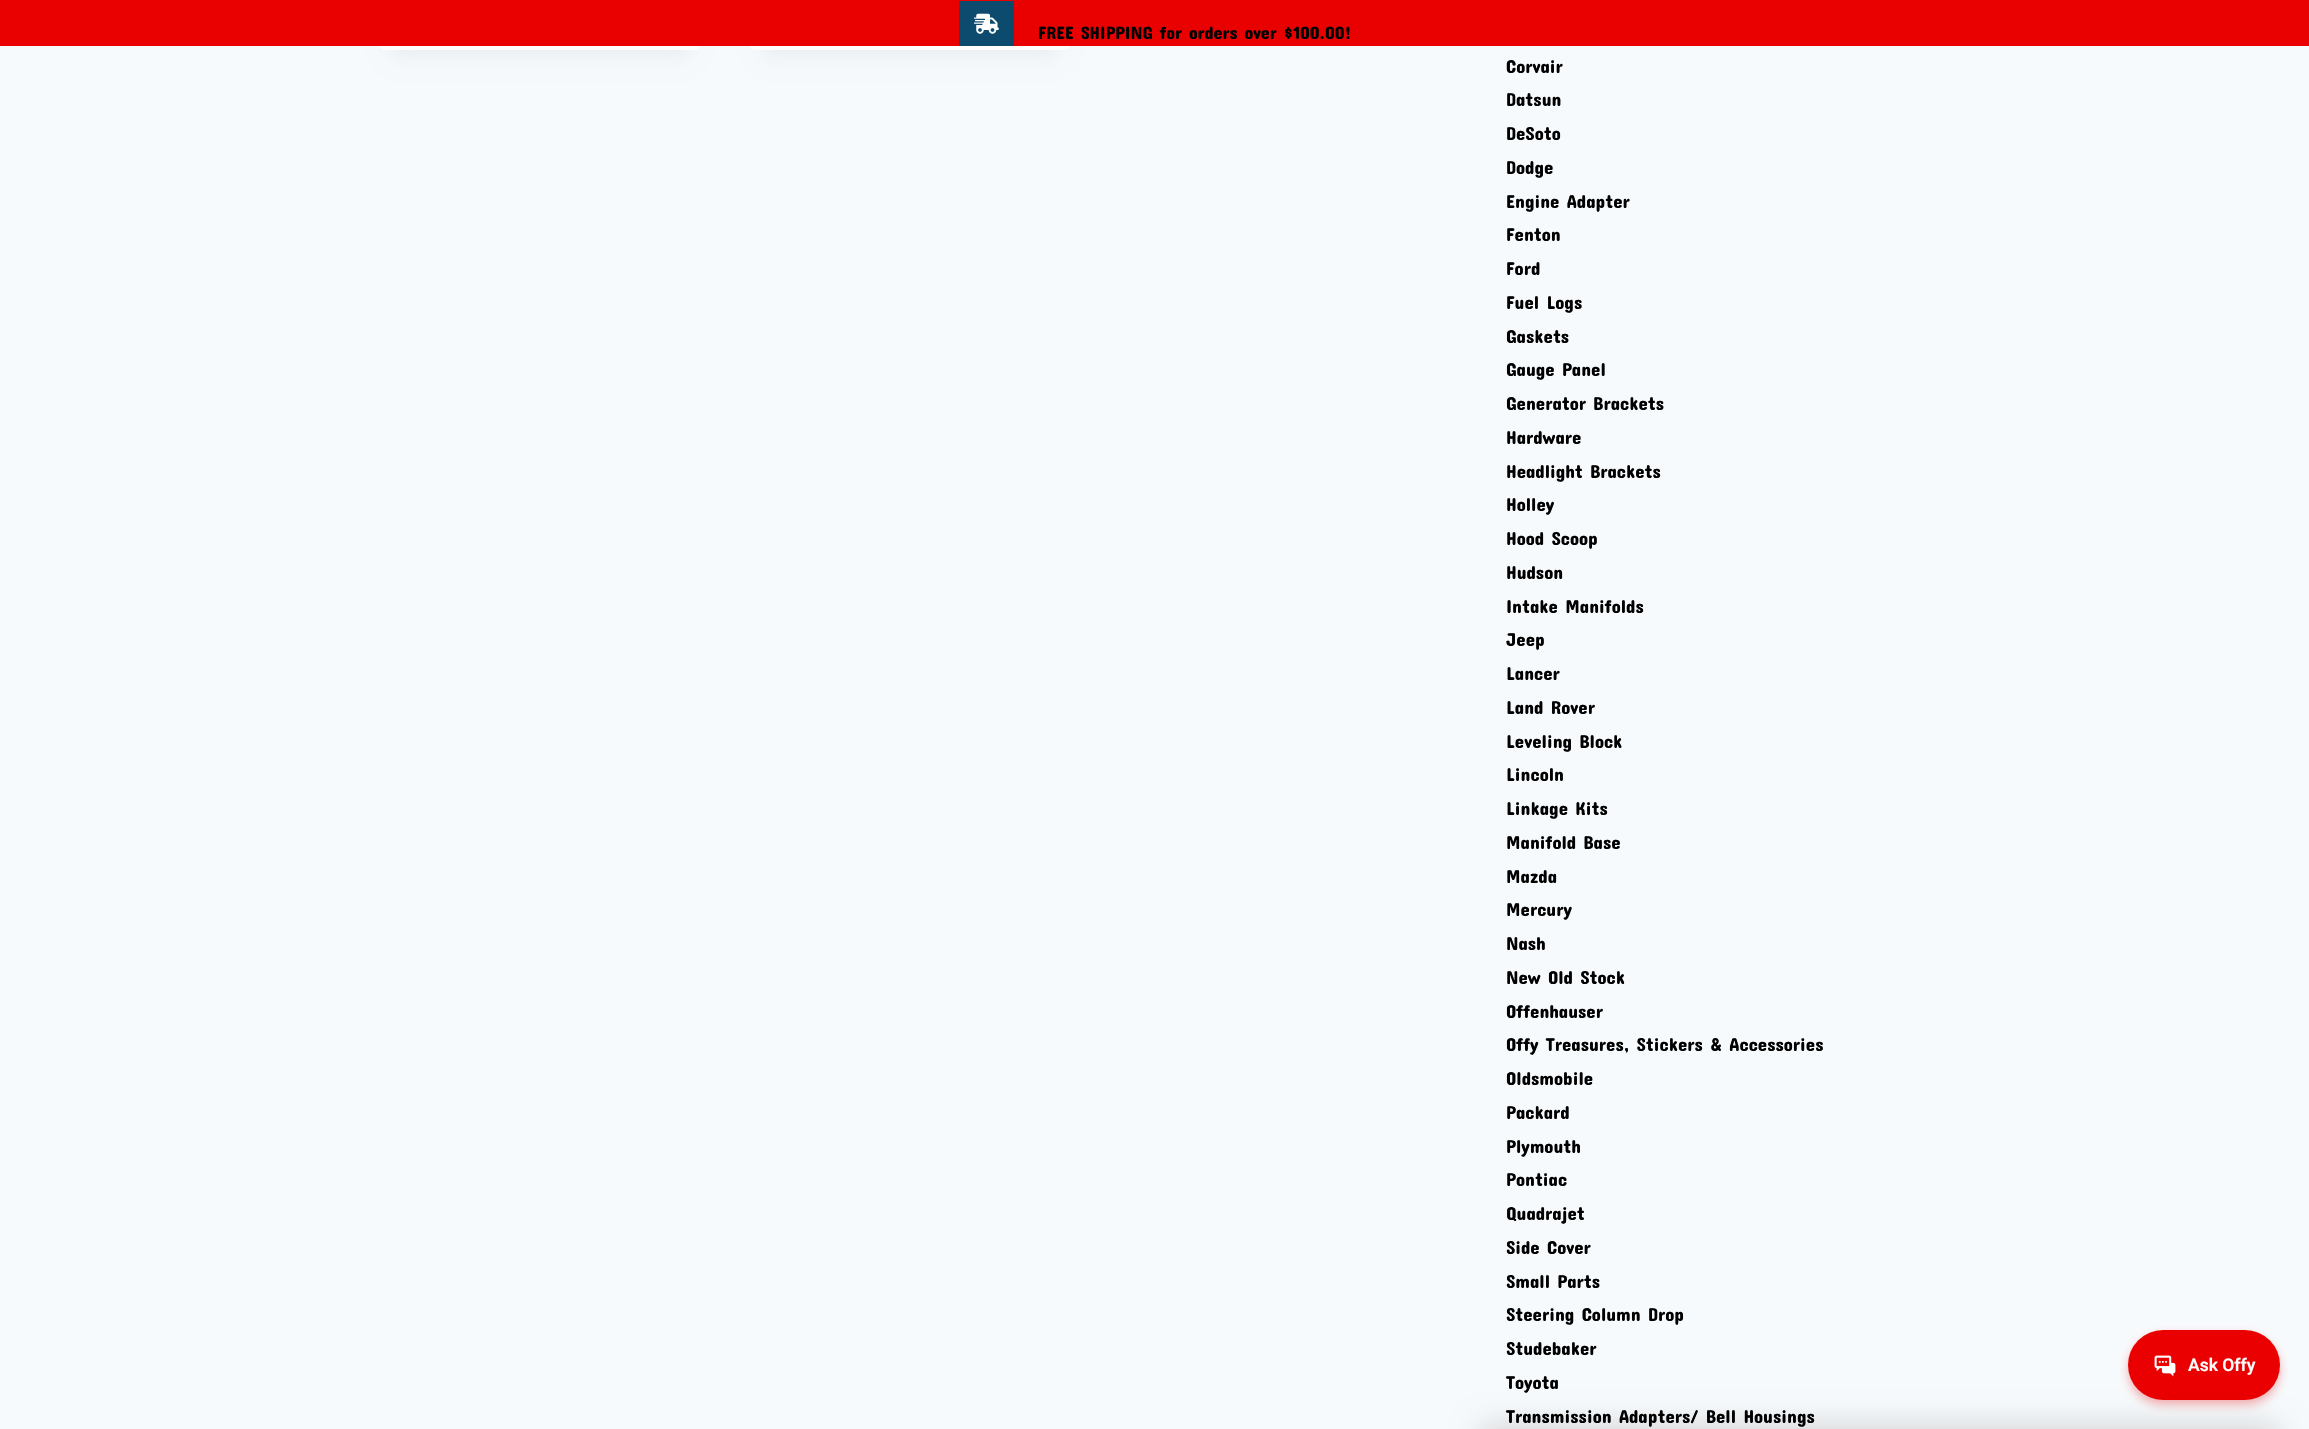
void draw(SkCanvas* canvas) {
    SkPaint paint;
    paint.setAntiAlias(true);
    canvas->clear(0xFFF7FAFC);
    paint.setColor(0x0D000000);
    paint.setMaskFilter(SkMaskFilter::MakeBlur(kNormal_SkBlurStyle, 9.5f));
    canvas->drawRect(SkRect::MakeXYWH(391, -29, 297, 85), paint);
    paint.setMaskFilter(nullptr);
    paint.setColor(0xFFFFFFFF);
    canvas->drawRoundRect(SkRect::MakeXYWH(379, -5, 321, 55), 5, 5, paint);
    paint.setColor(0x0D000000);
    paint.setMaskFilter(SkMaskFilter::MakeBlur(kNormal_SkBlurStyle, 9.5f));
    canvas->drawRect(SkRect::MakeXYWH(763, -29, 295, 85), paint);
    paint.setMaskFilter(nullptr);
    paint.setColor(0xFFFFFFFF);
    canvas->drawRoundRect(SkRect::MakeXYWH(750, -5, 320, 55), 5, 5, paint);
    paint.setColor(0xFFE90000);
    canvas->drawRect(SkRect::MakeXYWH(0, 0, 2309, 46), paint);
    paint.setColor(0xFF0C4A6E);
    canvas->drawRect(SkRect::MakeXYWH(959, 1, 55, 45), paint);
    canvas->drawImageRect(SkImages::DeferredFromEncodedData(SkData::MakeFromFileName("img1.png")), SkRect::MakeXYWH(974, 13, 25, 21), SkSamplingOptions());
    SkFont font1(fontMgr->matchFamilyStyle("Concert One", SkFontStyle::Normal()), 18);
    font1.setSubpixel(true);
    paint.setColor(0xFF000000);
    canvas->drawString("FREE SHIPPING for orders over $100.00!", 1038, 39, font1, paint);
    SkFont font2(fontMgr->matchFamilyStyle("Concert One", SkFontStyle::Normal()), 18.75f);
    font2.setSubpixel(true);
    canvas->drawString("Corvair", 1506, 73, font2, paint);
    canvas->drawString("Datsun", 1506, 106, font2, paint);
    canvas->drawString("DeSoto", 1506, 140, font2, paint);
    canvas->drawString("Dodge", 1506, 174, font2, paint);
    canvas->drawString("Engine Adapter", 1506, 208, font2, paint);
    canvas->drawString("Fenton", 1506, 241, font2, paint);
    canvas->drawString("Ford", 1506, 275, font2, paint);
    canvas->drawString("Fuel Logs", 1506, 309, font2, paint);
    canvas->drawString("Gaskets", 1506, 343, font2, paint);
    canvas->drawString("Gauge Panel", 1506, 376, font2, paint);
    canvas->drawString("Generator Brackets", 1506, 410, font2, paint);
    canvas->drawString("Hardware", 1506, 444, font2, paint);
    canvas->drawString("Headlight Brackets", 1506, 478, font2, paint);
    canvas->drawString("Holley", 1506, 511, font2, paint);
    canvas->drawString("Hood Scoop", 1506, 545, font2, paint);
    canvas->drawString("Hudson", 1506, 579, font2, paint);
    canvas->drawString("Intake Manifolds", 1506, 613, font2, paint);
    canvas->drawString("Jeep", 1506, 646, font2, paint);
    canvas->drawString("Lancer", 1506, 680, font2, paint);
    canvas->drawString("Land Rover", 1506, 714, font2, paint);
    canvas->drawString("Leveling Block", 1506, 748, font2, paint);
    canvas->drawString("Lincoln", 1506, 781, font2, paint);
    canvas->drawString("Linkage Kits", 1506, 815, font2, paint);
    canvas->drawString("Manifold Base", 1506, 849, font2, paint);
    canvas->drawString("Mazda", 1506, 883, font2, paint);
    canvas->drawString("Mercury", 1506, 916, font2, paint);
    canvas->drawString("Nash", 1506, 950, font2, paint);
    canvas->drawString("New Old Stock", 1506, 984, font2, paint);
    canvas->drawString("Offenhauser", 1506, 1018, font2, paint);
    canvas->drawString("Offy Treasures, Stickers & Accessories", 1506, 1051, font2, paint);
    canvas->drawString("Oldsmobile", 1506, 1085, font2, paint);
    canvas->drawString("Packard", 1506, 1119, font2, paint);
    canvas->drawString("Plymouth", 1506, 1153, font2, paint);
    canvas->drawString("Pontiac", 1506, 1186, font2, paint);
    canvas->drawString("Quadrajet", 1506, 1220, font2, paint);
    canvas->drawString("Side Cover", 1506, 1254, font2, paint);
    canvas->drawString("Small Parts", 1506, 1288, font2, paint);
    canvas->drawString("Steering Column Drop", 1506, 1321, font2, paint);
    canvas->drawString("Studebaker", 1506, 1355, font2, paint);
    canvas->drawString("Toyota", 1506, 1389, font2, paint);
    canvas->drawString("Transmission Adapters/ Bell Housings", 1506, 1423, font2, paint);
    paint.setColor(0x4DEA0000);
    paint.setMaskFilter(SkMaskFilter::MakeBlur(kNormal_SkBlurStyle, 5));
    canvas->drawRoundRect(SkRect::MakeXYWH(2128, 1335, 152, 70), 35, 35, paint);
    paint.setMaskFilter(nullptr);
    paint.setColor(0xFFEA0000);
    canvas->drawRoundRect(SkRect::MakeXYWH(2128, 1330, 152, 70), 35, 35, paint);
    canvas->drawImageRect(SkImages::DeferredFromEncodedData(SkData::MakeFromFileName("img2.png")), SkRect::MakeXYWH(2154, 1355, 22, 22), SkSamplingOptions());
    SkFont font3(fontMgr->matchFamilyStyle("Roboto", SkFontStyle(600, SkFontStyle::kNormal_Width, SkFontStyle::kUpright_Slant)), 17.5f);
    font3.setSubpixel(true);
    paint.setColor(0xFFFFFFFF);
    canvas->drawString("Ask Offy", 2188, 1371, font3, paint);
    paint.setColor(0x26000000);
    paint.setMaskFilter(SkMaskFilter::MakeBlur(kNormal_SkBlurStyle, 15));
    canvas->drawRoundRect(SkRect::MakeXYWH(1480, 1425, 800, 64), 15, 15, paint);
    paint.setMaskFilter(nullptr);
}
